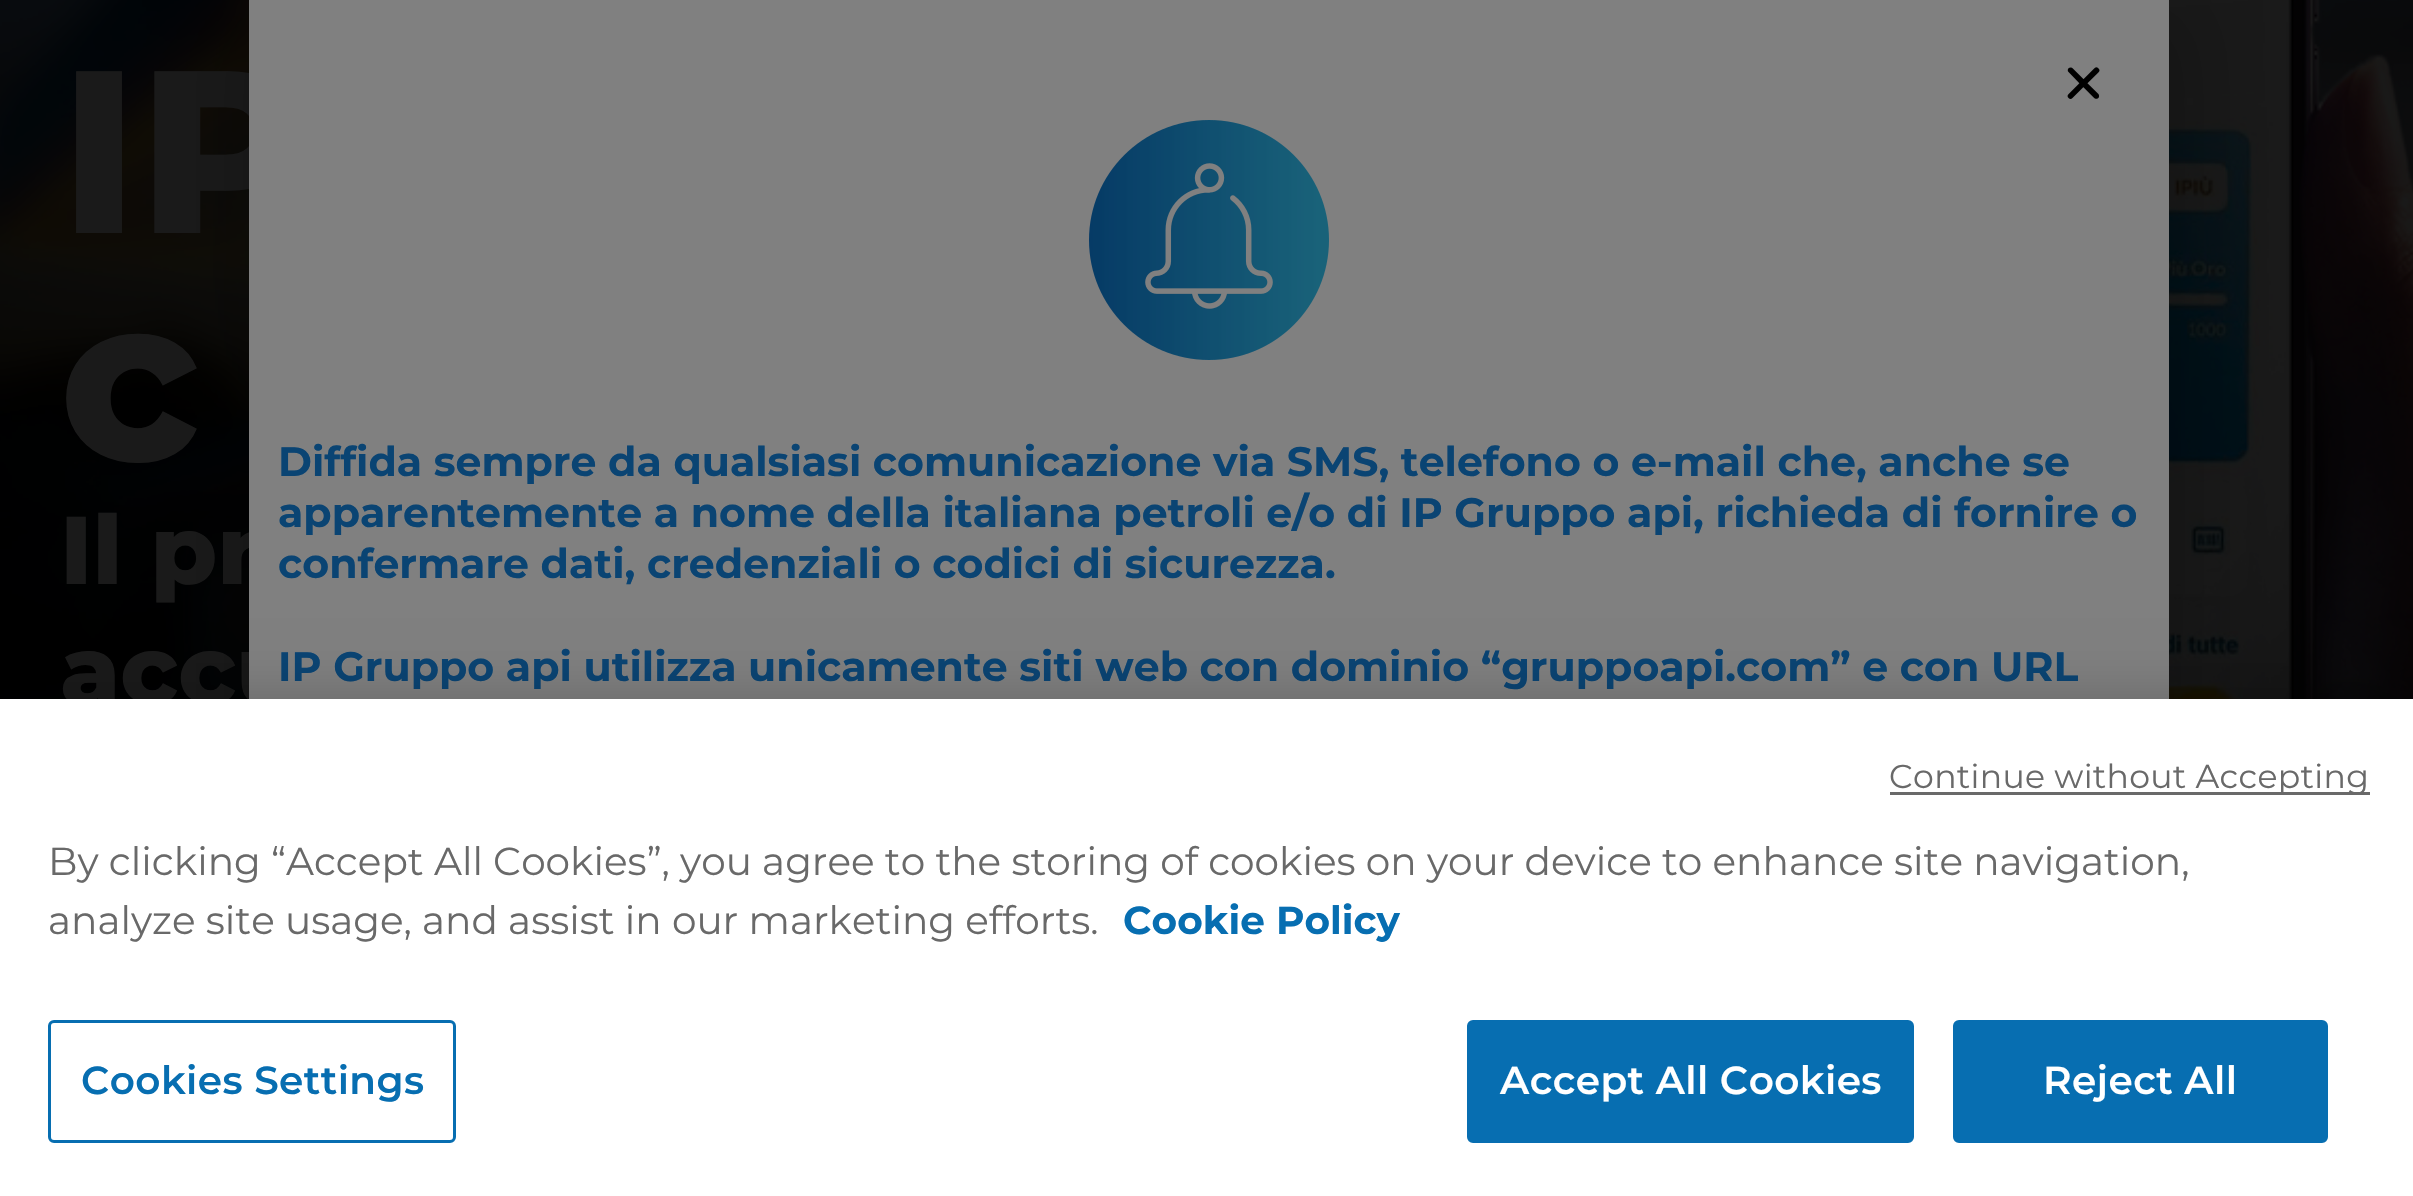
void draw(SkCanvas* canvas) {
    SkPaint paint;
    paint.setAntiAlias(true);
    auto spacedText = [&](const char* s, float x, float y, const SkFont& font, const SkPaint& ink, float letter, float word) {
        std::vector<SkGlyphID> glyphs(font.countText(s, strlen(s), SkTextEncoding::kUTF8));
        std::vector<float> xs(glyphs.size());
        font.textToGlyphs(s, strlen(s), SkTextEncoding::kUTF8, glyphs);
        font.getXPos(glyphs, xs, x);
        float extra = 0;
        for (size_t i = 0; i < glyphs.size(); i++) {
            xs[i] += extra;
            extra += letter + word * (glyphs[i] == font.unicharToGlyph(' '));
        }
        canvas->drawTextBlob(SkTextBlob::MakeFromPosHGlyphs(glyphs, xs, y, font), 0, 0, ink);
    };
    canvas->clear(0xFFFFFFFF);
    canvas->drawImageRect(SkImages::DeferredFromEncodedData(SkData::MakeFromFileName("img1.png")), SkRect::MakeXYWH(0, 0, 2413, 699), SkSamplingOptions());
    SkFont font1(fontMgr->matchFamilyStyle("Montserrat", SkFontStyle(800, SkFontStyle::kNormal_Width, SkFontStyle::kUpright_Slant)), 231);
    font1.setSubpixel(true);
    paint.setColor(0xFF1A1A1A);
    canvas->drawString("IP", 60, 233, font1, paint);
    canvas->drawString("c", 60, 461, font1, paint);
    SkFont font2(fontMgr->matchFamilyStyle("Montserrat", SkFontStyle(800, SkFontStyle::kNormal_Width, SkFontStyle::kUpright_Slant)), 96);
    font2.setSubpixel(true);
    canvas->drawString("Il pr", 60, 584, font2, paint);
    canvas->drawString("accu", 60, 704, font2, paint);
    paint.setColor(0x33000000);
    paint.setMaskFilter(SkMaskFilter::MakeBlur(kNormal_SkBlurStyle, 34.5f));
    canvas->drawRect(SkRect::MakeXYWH(246, 15, 1938, 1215), paint);
    paint.setMaskFilter(nullptr);
    paint.setColor(0xFF808080);
    canvas->drawRect(SkRect::MakeXYWH(249, 0, 1920, 699), paint);
    canvas->drawImageRect(SkImages::DeferredFromEncodedData(SkData::MakeFromFileName("img2.png")), SkRect::MakeXYWH(2067, 67, 33, 32), SkSamplingOptions());
    canvas->drawImageRect(SkImages::DeferredFromEncodedData(SkData::MakeFromFileName("img3.png")), SkRect::MakeXYWH(1089, 120, 240, 240), SkSamplingOptions());
    SkFont font3(fontMgr->matchFamilyStyle("Montserrat", SkFontStyle::Bold()), 41.05f);
    font3.setSubpixel(true);
    paint.setColor(0xFF0A4473);
    canvas->drawString("Diffida sempre da qualsiasi comunicazione via SMS, telefono o e-mail che, anche se", 278, 476, font3, paint);
    canvas->drawString("apparentemente a nome della italiana petroli e/o di IP Gruppo api, richieda di fornire o", 278, 527, font3, paint);
    canvas->drawString("confermare dati, credenziali o codici di sicurezza.", 278, 578, font3, paint);
    canvas->drawString("IP Gruppo api utilizza unicamente siti web con dominio “gruppoapi.com” e con URL", 278, 681, font3, paint);
    paint.setColor(0x33000000);
    paint.setMaskFilter(SkMaskFilter::MakeBlur(kNormal_SkBlurStyle, 27));
    canvas->drawRect(SkRect::MakeXYWH(0, 699, 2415, 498), paint);
    paint.setMaskFilter(nullptr);
    paint.setColor(0xFFFFFFFF);
    canvas->drawRect(SkRect::MakeXYWH(0, 699, 2413, 497), paint);
    paint.setColor(0xFF696969);
    canvas->drawRect(SkRect::MakeXYWH(1890, 792, 480, 3), paint);
    SkFont font4(fontMgr->matchFamilyStyle("Montserrat", SkFontStyle::Normal()), 33.1f);
    font4.setSubpixel(true);
    spacedText("Continue without Accepting", 1889, 788, font4, paint, 0.3f, 0);
    SkFont font5(fontMgr->matchFamilyStyle("Montserrat", SkFontStyle::Normal()), 39.02f);
    font5.setSubpixel(true);
    canvas->drawString("By clicking “Accept All Cookies”, you agree to the storing of cookies on your device to enhance site navigation,", 48, 875, font5, paint);
    canvas->drawString("analyze site usage, and assist in our marketing efforts.", 48, 934, font5, paint);
    SkFont font6(fontMgr->matchFamilyStyle("Montserrat", SkFontStyle::Bold()), 39.02f);
    font6.setSubpixel(true);
    paint.setColor(0xFF076EB1);
    canvas->drawString("Cookie Policy", 1123, 934, font6, paint);
    paint.setStyle(SkPaint::kStroke_Style);
    paint.setStrokeWidth(3);
    canvas->drawRoundRect(SkRect::MakeXYWH(49.5f, 1021.5f, 405, 120), 4.5f, 4.5f, paint);
    SkFont font7(fontMgr->matchFamilyStyle("Montserrat", SkFontStyle(600, SkFontStyle::kNormal_Width, SkFontStyle::kUpright_Slant)), 39.02f);
    font7.setSubpixel(true);
    paint.setStyle(SkPaint::kFill_Style);
    spacedText("Cookies Settings", 81, 1094, font7, paint, 0.4f, 0);
    canvas->drawRoundRect(SkRect::MakeXYWH(1468.5f, 1021.5f, 444, 120), 4.5f, 4.5f, paint);
    paint.setStyle(SkPaint::kStroke_Style);
    canvas->drawRoundRect(SkRect::MakeXYWH(1468.5f, 1021.5f, 444, 120), 4.5f, 4.5f, paint);
    paint.setStyle(SkPaint::kFill_Style);
    paint.setColor(0xFFFFFFFF);
    spacedText("Accept All Cookies", 1500, 1094, font7, paint, 0.4f, 0);
    paint.setColor(0xFF076EB1);
    canvas->drawRoundRect(SkRect::MakeXYWH(1954.5f, 1021.5f, 372, 120), 4.5f, 4.5f, paint);
    paint.setStyle(SkPaint::kStroke_Style);
    canvas->drawRoundRect(SkRect::MakeXYWH(1954.5f, 1021.5f, 372, 120), 4.5f, 4.5f, paint);
    paint.setStyle(SkPaint::kFill_Style);
    paint.setColor(0xFFFFFFFF);
    spacedText("Reject All", 2043, 1094, font7, paint, 0.4f, 0);
}
